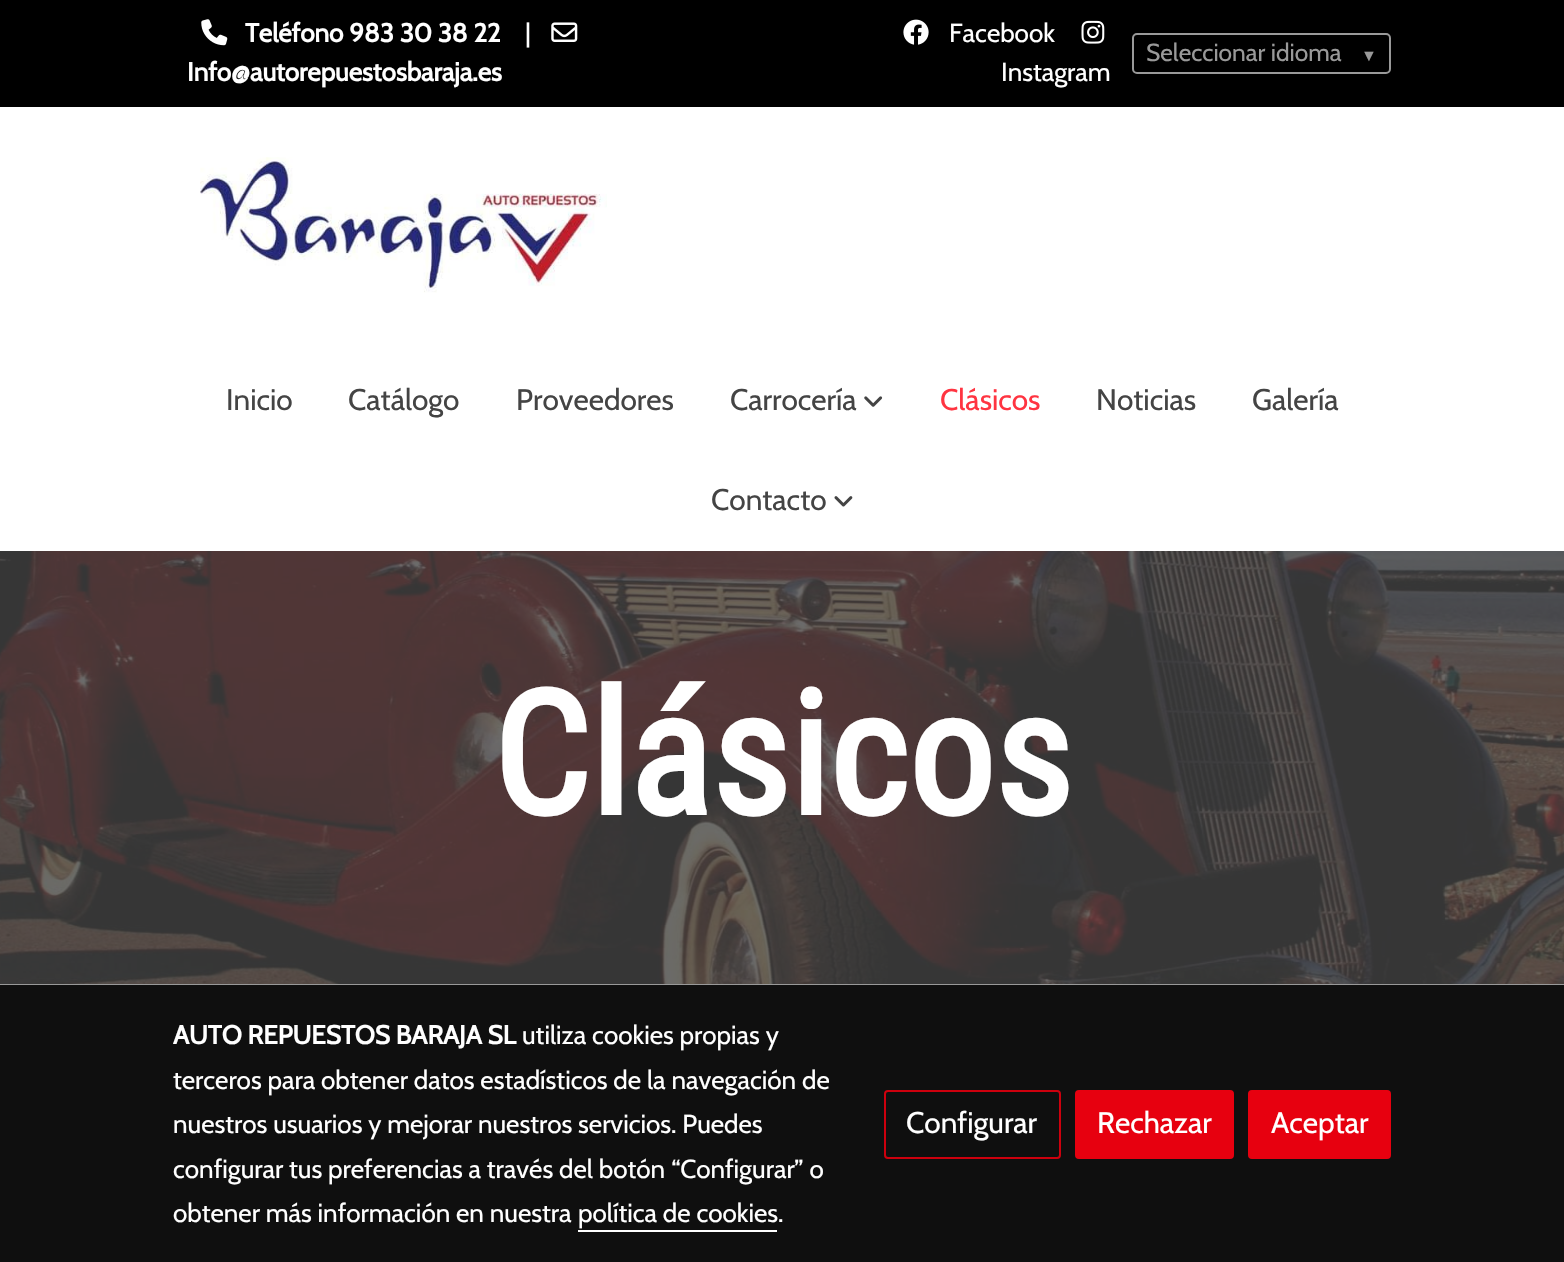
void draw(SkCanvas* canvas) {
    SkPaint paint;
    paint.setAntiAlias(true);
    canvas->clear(0xFFFFFFFF);
    paint.setColor(0xFF000000);
    canvas->drawRect(SkRect::MakeXYWH(0, 0, 1564, 107), paint);
    canvas->drawImageRect(SkImages::DeferredFromEncodedData(SkData::MakeFromFileName("img1.png")), SkRect::MakeXYWH(201, 19, 27, 27), SkSamplingOptions());
    SkFont font1(fontMgr->matchFamilyStyle("Cabin", SkFontStyle::Bold()), 26);
    font1.setSubpixel(true);
    paint.setColor(0xFFFFFFFF);
    canvas->drawString("Teléfono 983 30 38 22", 245, 42, font1, paint);
    SkFont font2(fontMgr->matchFamilyStyle("Cabin", SkFontStyle::Normal()), 26);
    font2.setSubpixel(true);
    canvas->drawString("|", 525, 42, font2, paint);
    canvas->drawImageRect(SkImages::DeferredFromEncodedData(SkData::MakeFromFileName("img2.png")), SkRect::MakeXYWH(551, 22, 27, 20), SkSamplingOptions());
    canvas->drawString("Info@autorepuestosbaraja.es", 187, 81, font1, paint);
    canvas->drawImageRect(SkImages::DeferredFromEncodedData(SkData::MakeFromFileName("img3.png")), SkRect::MakeXYWH(903, 19, 26, 26), SkSamplingOptions());
    canvas->drawString("Facebook", 949, 42, font2, paint);
    canvas->drawImageRect(SkImages::DeferredFromEncodedData(SkData::MakeFromFileName("img4.png")), SkRect::MakeXYWH(1081, 20, 24, 24), SkSamplingOptions());
    canvas->drawString("Instagram", 1001, 81, font2, paint);
    paint.setStyle(SkPaint::kStroke_Style);
    paint.setStrokeWidth(2);
    paint.setColor(0xFF999999);
    canvas->drawRoundRect(SkRect::MakeXYWH(1133, 34, 257, 39), 4, 4, paint);
    SkFont font3(fontMgr->matchFamilyStyle("Cabin", SkFontStyle::Normal()), 24.5f);
    font3.setSubpixel(true);
    paint.setStyle(SkPaint::kFill_Style);
    canvas->drawString("Seleccionar idioma", 1146, 61, font3, paint);
    SkFont font4(fontMgr->matchFamilyStyle("Liberation Sans", SkFontStyle::Normal()), 16);
    font4.setSubpixel(true);
    canvas->drawString("▼", 1361, 61, font4, paint);
    canvas->drawImageRect(SkImages::DeferredFromEncodedData(SkData::MakeFromFileName("img5.png")), SkRect::MakeXYWH(200, 157, 407, 136), SkSamplingOptions());
    SkFont font5(fontMgr->matchFamilyStyle("Cabin", SkFontStyle::Normal()), 29.75f);
    font5.setSubpixel(true);
    paint.setColor(0xFF444444);
    canvas->drawString("Inicio", 226, 410, font5, paint);
    canvas->drawString("Catálogo", 348, 410, font5, paint);
    canvas->drawString("Proveedores", 516, 410, font5, paint);
    canvas->drawString("Carrocería", 730, 410, font5, paint);
    canvas->drawImageRect(SkImages::DeferredFromEncodedData(SkData::MakeFromFileName("img6.png")), SkRect::MakeXYWH(864, 396, 19, 11), SkSamplingOptions());
    paint.setColor(0xFFFF3441);
    canvas->drawString("Clásicos", 940, 410, font5, paint);
    paint.setColor(0xFF444444);
    canvas->drawString("Noticias", 1096, 410, font5, paint);
    canvas->drawString("Galería", 1252, 410, font5, paint);
    canvas->drawString("Contacto", 711, 510, font5, paint);
    canvas->drawImageRect(SkImages::DeferredFromEncodedData(SkData::MakeFromFileName("img7.png")), SkRect::MakeXYWH(834, 496, 19, 11), SkSamplingOptions());
    canvas->drawImageRect(SkImages::DeferredFromEncodedData(SkData::MakeFromFileName("img8.png")), SkRect::MakeXYWH(0, 551, 1564, 433), SkSamplingOptions());
    SkFont font6(fontMgr->matchFamilyStyle("Roboto Condensed", SkFontStyle::Bold()), 171.5f);
    font6.setSubpixel(true);
    paint.setColor(0xFFFFFFFF);
    canvas->drawString("Clásicos", 492, 815, font6, paint);
    paint.setColor(0xFF999999);
    canvas->drawRect(SkRect::MakeXYWH(0, 984, 1564, 1), paint);
    paint.setColor(0xFF0F0F0F);
    canvas->drawRect(SkRect::MakeXYWH(0, 985, 1564, 277), paint);
    paint.setColor(0xFFFFFFFF);
    canvas->drawString("AUTO REPUESTOS BARAJA SL", 173, 1044, font1, paint);
    canvas->drawString("utiliza cookies propias y", 522, 1044, font2, paint);
    canvas->drawString("terceros para obtener datos estadísticos de la navegación de", 173, 1089, font2, paint);
    canvas->drawString("nuestros usuarios y mejorar nuestros servicios. Puedes", 173, 1133, font2, paint);
    canvas->drawString("configurar tus preferencias a través del botón “Configurar” o", 173, 1178, font2, paint);
    canvas->drawString("obtener más información en nuestra", 173, 1222, font2, paint);
    canvas->drawString("política de cookies.", 578, 1222, font2, paint);
    canvas->drawRect(SkRect::MakeXYWH(578, 1230, 199, 2), paint);
    paint.setStyle(SkPaint::kStroke_Style);
    paint.setColor(0xFFCD000D);
    canvas->drawRoundRect(SkRect::MakeXYWH(885, 1091, 175, 67), 3, 3, paint);
    paint.setStyle(SkPaint::kFill_Style);
    paint.setColor(0xFFFFFFFF);
    canvas->drawString("Configurar", 906, 1133, font5, paint);
    paint.setColor(0xFFE7000F);
    canvas->drawRoundRect(SkRect::MakeXYWH(1076, 1091, 157, 67), 3, 3, paint);
    paint.setStyle(SkPaint::kStroke_Style);
    canvas->drawRoundRect(SkRect::MakeXYWH(1076, 1091, 157, 67), 3, 3, paint);
    paint.setStyle(SkPaint::kFill_Style);
    paint.setColor(0xFFFFFFFF);
    canvas->drawString("Rechazar", 1097, 1133, font5, paint);
    paint.setColor(0xFFE7000F);
    canvas->drawRoundRect(SkRect::MakeXYWH(1249, 1091, 141, 67), 3, 3, paint);
    paint.setStyle(SkPaint::kStroke_Style);
    canvas->drawRoundRect(SkRect::MakeXYWH(1249, 1091, 141, 67), 3, 3, paint);
    paint.setStyle(SkPaint::kFill_Style);
    paint.setColor(0xFFFFFFFF);
    canvas->drawString("Aceptar", 1271, 1133, font5, paint);
}
